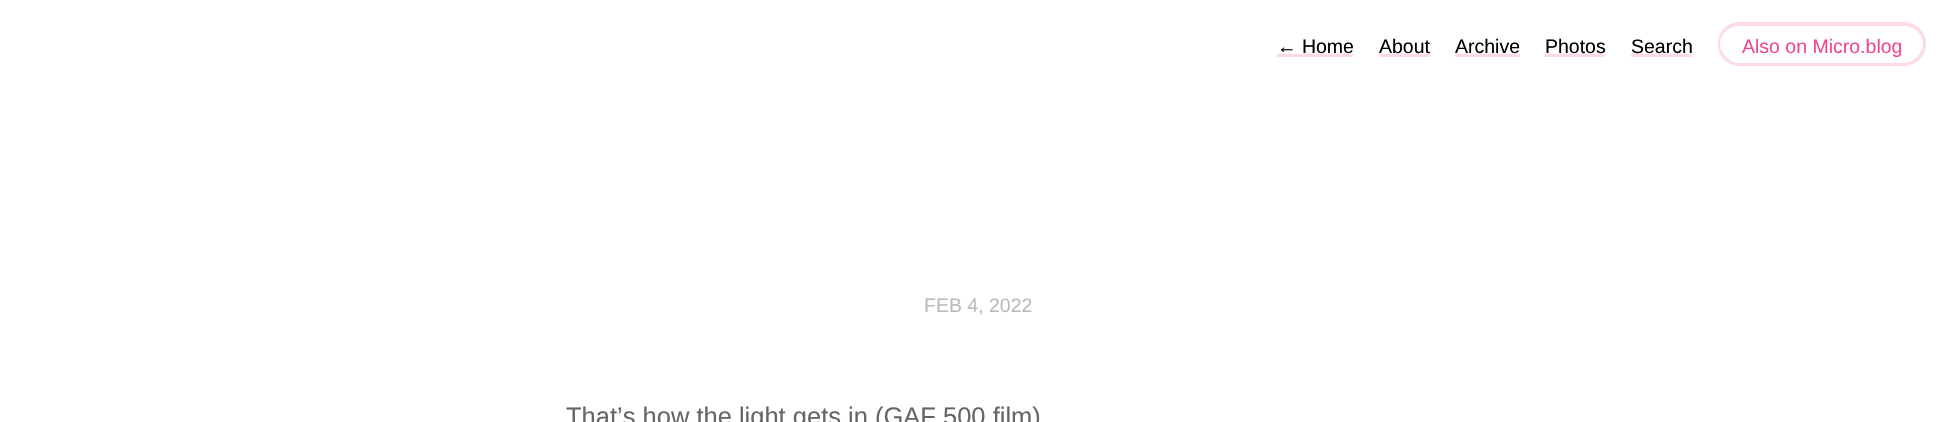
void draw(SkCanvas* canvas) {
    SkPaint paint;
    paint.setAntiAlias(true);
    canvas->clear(0xFFFFFFFF);
    SkFont font1(fontMgr->matchFamilyStyle("Liberation Sans", SkFontStyle::Normal()), 19.5f);
    font1.setSubpixel(true);
    paint.setColor(0xFF000000);
    canvas->drawString("← Home", 1277, 53, font1, paint);
    paint.setColor(0xFFFCDAE9);
    canvas->drawRect(SkRect::MakeXYWH(1277, 54, 76, 3), paint);
    paint.setColor(0xFF000000);
    canvas->drawString("About", 1379, 53, font1, paint);
    paint.setColor(0xFFFCDAE9);
    canvas->drawRect(SkRect::MakeXYWH(1379, 54, 51, 3), paint);
    paint.setColor(0xFF000000);
    canvas->drawString("Archive", 1455, 53, font1, paint);
    paint.setColor(0xFFFCDAE9);
    canvas->drawRect(SkRect::MakeXYWH(1455, 54, 65, 3), paint);
    paint.setColor(0xFF000000);
    canvas->drawString("Photos", 1545, 53, font1, paint);
    paint.setColor(0xFFFCDAE9);
    canvas->drawRect(SkRect::MakeXYWH(1545, 54, 60, 3), paint);
    paint.setColor(0xFF000000);
    canvas->drawString("Search", 1631, 53, font1, paint);
    paint.setColor(0xFFFCDAE9);
    canvas->drawRect(SkRect::MakeXYWH(1631, 54, 61, 3), paint);
    canvas->drawPath(SkPathBuilder().moveTo(1721, 46).cubicTo(1721, 57, 1729, 66, 1739, 66).lineTo(1904, 66).cubicTo(1915, 66, 1923, 56, 1923, 44).lineTo(1923, 43).cubicTo(1922, 54, 1914, 63, 1904, 63).lineTo(1739, 63).cubicTo(1730, 63, 1723, 56, 1721, 46).close().detach(), paint);
    canvas->drawPath(SkPathBuilder(SkPathFillType::kEvenOdd).moveTo(1739, 22).lineTo(1904, 22).cubicTo(1916, 22, 1926, 32, 1926, 44).cubicTo(1926, 56, 1916, 66, 1904, 66).lineTo(1739, 66).cubicTo(1727, 66, 1718, 56, 1718, 44).cubicTo(1718, 32, 1727, 22, 1739, 22).close().moveTo(1739, 26).lineTo(1904, 26).cubicTo(1915, 26, 1923, 34, 1923, 44).cubicTo(1923, 56, 1915, 66, 1904, 66).lineTo(1739, 66).cubicTo(1729, 66, 1720, 56, 1720, 44).cubicTo(1720, 34, 1729, 26, 1739, 26).close().detach(), paint);
    paint.setColor(0xFFEE4792);
    canvas->drawString("Also on Micro.blog", 1742, 53, font1, paint);
    paint.setColor(0xFFBBBBBB);
    canvas->drawString("FEB 4, 2022", 924, 312, font1, paint);
    SkFont font2(fontMgr->matchFamilyStyle("Liberation Sans", SkFontStyle::Normal()), 25.5f);
    font2.setSubpixel(true);
    paint.setColor(0xFF666666);
    canvas->drawString("That’s how the light gets in (GAF 500 film)", 566, 425, font2, paint);
}
